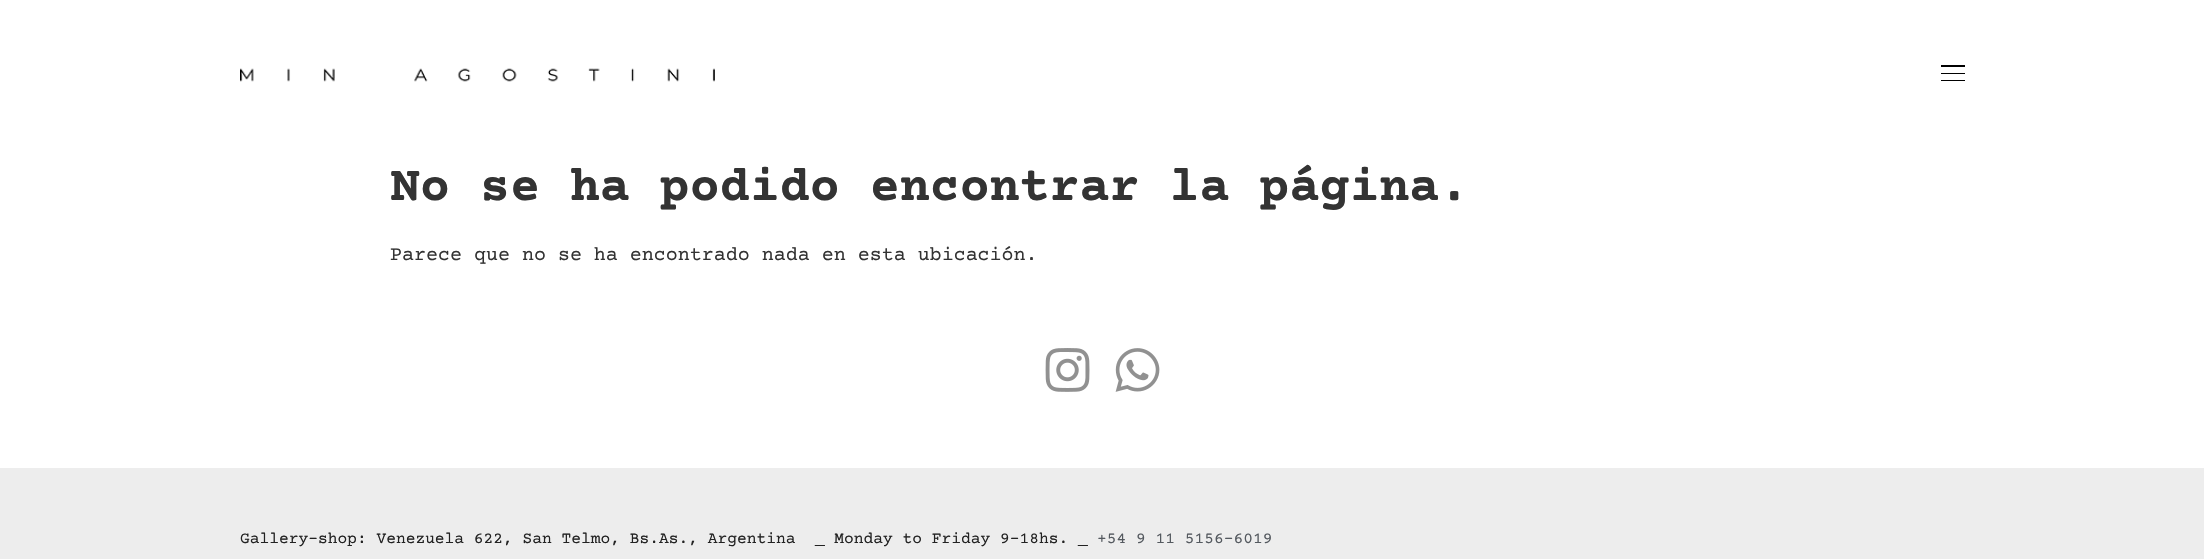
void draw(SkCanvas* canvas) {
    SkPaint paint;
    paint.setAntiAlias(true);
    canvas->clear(0xFFFFFFFF);
    canvas->drawImageRect(SkImages::DeferredFromEncodedData(SkData::MakeFromFileName("img1.png")), SkRect::MakeXYWH(240, 68, 475, 14), SkSamplingOptions());
    paint.setColor(0xFF000000);
    canvas->drawRect(SkRect::MakeXYWH(1941, 65, 24, 2), paint);
    canvas->drawRect(SkRect::MakeXYWH(1941, 80, 24, 1), paint);
    canvas->drawRect(SkRect::MakeXYWH(1941, 73, 24, 1), paint);
    SkFont font1(fontMgr->matchFamilyStyle("Courier Prime", SkFontStyle::Bold()), 50);
    font1.setSubpixel(true);
    paint.setColor(0xFF333333);
    canvas->drawString("No se ha podido encontrar la página.", 390, 200, font1, paint);
    SkFont font2(fontMgr->matchFamilyStyle("Courier Prime", SkFontStyle::Normal()), 20);
    font2.setSubpixel(true);
    canvas->drawString("Parece que no se ha encontrado nada en esta ubicación.", 390, 260, font2, paint);
    canvas->drawImageRect(SkImages::DeferredFromEncodedData(SkData::MakeFromFileName("img2.png")), SkRect::MakeXYWH(1045, 348, 45, 44), SkSamplingOptions());
    canvas->drawImageRect(SkImages::DeferredFromEncodedData(SkData::MakeFromFileName("img3.png")), SkRect::MakeXYWH(1115, 348, 45, 44), SkSamplingOptions());
    paint.setColor(0xFFEDEDED);
    canvas->drawRect(SkRect::MakeXYWH(0, 468, 2204, 91), paint);
    SkFont font3(fontMgr->matchFamilyStyle("Courier Prime", SkFontStyle::Normal()), 16.25f);
    font3.setSubpixel(true);
    paint.setColor(0xFF222222);
    canvas->drawString("Gallery-shop: Venezuela 622, San Telmo, Bs.As., Argentina  _ Monday to Friday 9-18hs. _", 240, 543, font3, paint);
    paint.setColor(0xFF54595F);
    canvas->drawString("+54 9 11 5156-6019", 1097, 543, font3, paint);
}
